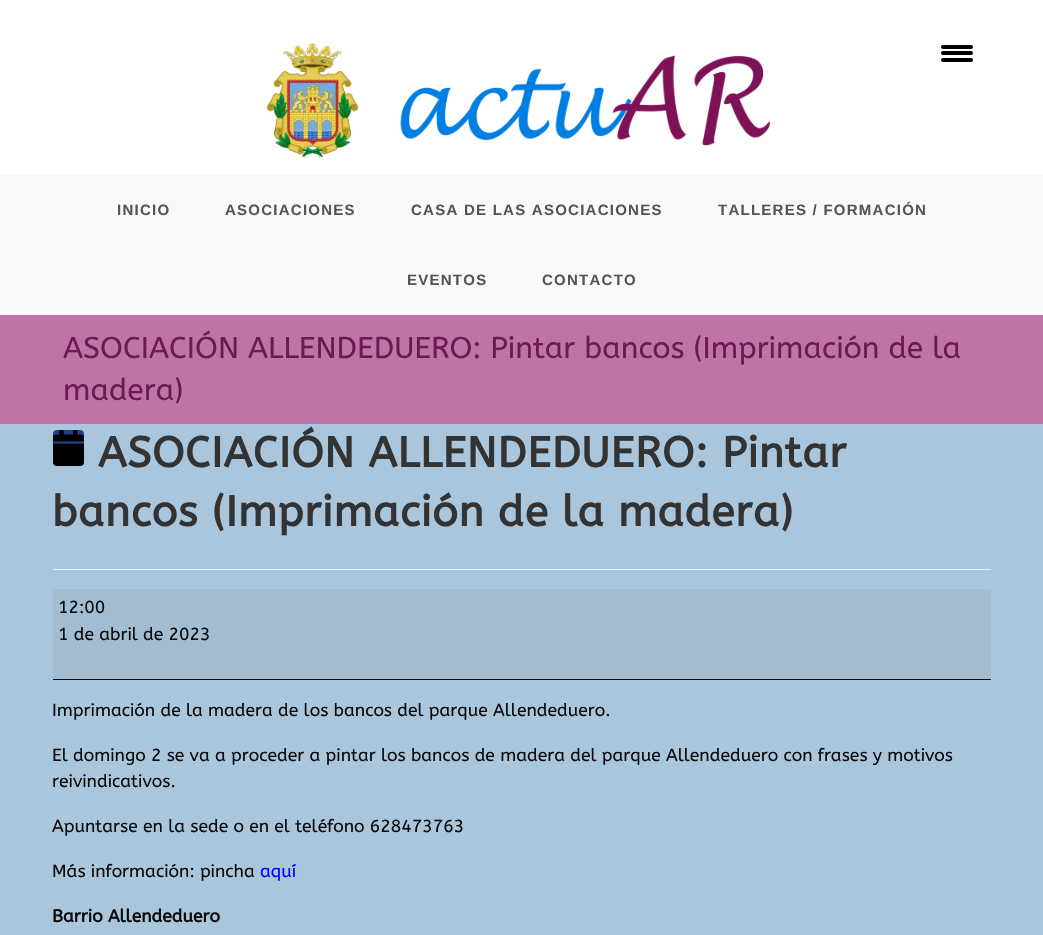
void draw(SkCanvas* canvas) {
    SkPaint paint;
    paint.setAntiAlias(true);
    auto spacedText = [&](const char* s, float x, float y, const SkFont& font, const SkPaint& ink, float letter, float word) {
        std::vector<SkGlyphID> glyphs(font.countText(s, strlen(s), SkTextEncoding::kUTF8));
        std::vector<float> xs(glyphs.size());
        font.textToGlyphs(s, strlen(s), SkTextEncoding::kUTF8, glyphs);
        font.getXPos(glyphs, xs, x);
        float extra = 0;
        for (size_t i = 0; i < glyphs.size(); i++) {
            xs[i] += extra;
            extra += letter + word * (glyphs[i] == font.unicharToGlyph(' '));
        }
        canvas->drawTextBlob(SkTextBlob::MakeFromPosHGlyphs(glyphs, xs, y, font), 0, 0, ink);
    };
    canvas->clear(0xFFAAC6DD);
    paint.setColor(0xFFFFFFFF);
    canvas->drawRect(SkRect::MakeXYWH(0, 0, 1043, 175), paint);
    paint.setColor(0xFF000000);
    canvas->drawRoundRect(SkRect::MakeXYWH(941, 51, 32, 4), 2, 2, paint);
    canvas->drawRoundRect(SkRect::MakeXYWH(941, 45, 32, 4), 2, 2, paint);
    canvas->drawRoundRect(SkRect::MakeXYWH(941, 58, 32, 4), 2, 2, paint);
    canvas->drawImageRect(SkImages::DeferredFromEncodedData(SkData::MakeFromFileName("img1.png")), SkRect::MakeXYWH(266, 42, 505, 116), SkSamplingOptions());
    paint.setColor(0xFFF9F9F9);
    canvas->drawRect(SkRect::MakeXYWH(0, 175, 1043, 140), paint);
    SkFont font1(fontMgr->matchFamilyStyle("Liberation Sans", SkFontStyle::Bold()), 15);
    font1.setSubpixel(true);
    paint.setColor(0xFF555555);
    spacedText("INICIO", 117, 215, font1, paint, 1.25f, 0);
    spacedText("ASOCIACIONES", 225, 215, font1, paint, 1.25f, 0);
    spacedText("CASA DE LAS ASOCIACIONES", 411, 215, font1, paint, 1.25f, 0);
    spacedText("TALLERES / FORMACIÓN", 718, 215, font1, paint, 1.25f, 0);
    spacedText("EVENTOS", 407, 285, font1, paint, 1.25f, 0);
    spacedText("CONTACTO", 542, 285, font1, paint, 1.25f, 0);
    paint.setColor(0xFFBF74A5);
    canvas->drawRect(SkRect::MakeXYWH(0, 315, 1043, 109), paint);
    SkFont font2(fontMgr->matchFamilyStyle("ABeeZee", SkFontStyle::Normal()), 30);
    font2.setSubpixel(true);
    paint.setColor(0xFF6C1956);
    canvas->drawString("ASOCIACIÓN ALLENDEDUERO: Pintar bancos (Imprimación de la", 63, 358, font2, paint);
    canvas->drawString("madera)", 63, 400, font2, paint);
    paint.setColor(0xFFF1F1F1);
    canvas->drawRect(SkRect::MakeXYWH(53, 569, 938, 1), paint);
    paint.setColor(0xFF243F82);
    canvas->drawRoundRect(SkRect::MakeXYWH(53, 430, 31, 36), 4, 4, paint);
    canvas->drawImageRect(SkImages::DeferredFromEncodedData(SkData::MakeFromFileName("img2.png")), SkRect::MakeXYWH(53, 430, 31, 36), SkSamplingOptions());
    SkFont font3(fontMgr->matchFamilyStyle("ABeeZee", SkFontStyle::Bold()), 42.5f);
    font3.setSubpixel(true);
    paint.setColor(0xFF333333);
    spacedText("ASOCIACIÓN ALLENDEDUERO: Pintar", 98, 467, font3, paint, 0.75f, 0);
    spacedText("bancos (Imprimación de la madera)", 52, 526, font3, paint, 0.75f, 0);
    paint.setColor(0xFFA2BCD2);
    canvas->drawRect(SkRect::MakeXYWH(53, 589, 938, 90), paint);
    paint.setColor(0xFF0A0A0A);
    canvas->drawRect(SkRect::MakeXYWH(53, 679, 938, 1), paint);
    SkFont font4(fontMgr->matchFamilyStyle("ABeeZee", SkFontStyle::Normal()), 17.5f);
    font4.setSubpixel(true);
    canvas->drawString("12:00", 58, 613, font4, paint);
    canvas->drawString("1 de abril de 2023", 58, 640, font4, paint);
    canvas->drawString("Imprimación de la madera de los bancos del parque Allendeduero.", 52, 716, font4, paint);
    canvas->drawString("El domingo 2 se va a proceder a pintar los bancos de madera del parque Allendeduero con frases y motivos", 52, 761, font4, paint);
    canvas->drawString("reivindicativos.", 52, 787, font4, paint);
    canvas->drawString("Apuntarse en la sede o en el teléfono 628473763", 52, 832, font4, paint);
    canvas->drawString("Más información: pincha", 52, 877, font4, paint);
    paint.setColor(0xFF0000FF);
    canvas->drawString("aquí", 260, 877, font4, paint);
    SkFont font5(fontMgr->matchFamilyStyle("ABeeZee", SkFontStyle::Bold()), 17.5f);
    font5.setSubpixel(true);
    paint.setColor(0xFF0A0A0A);
    canvas->drawString("Barrio Allendeduero", 52, 922, font5, paint);
}
